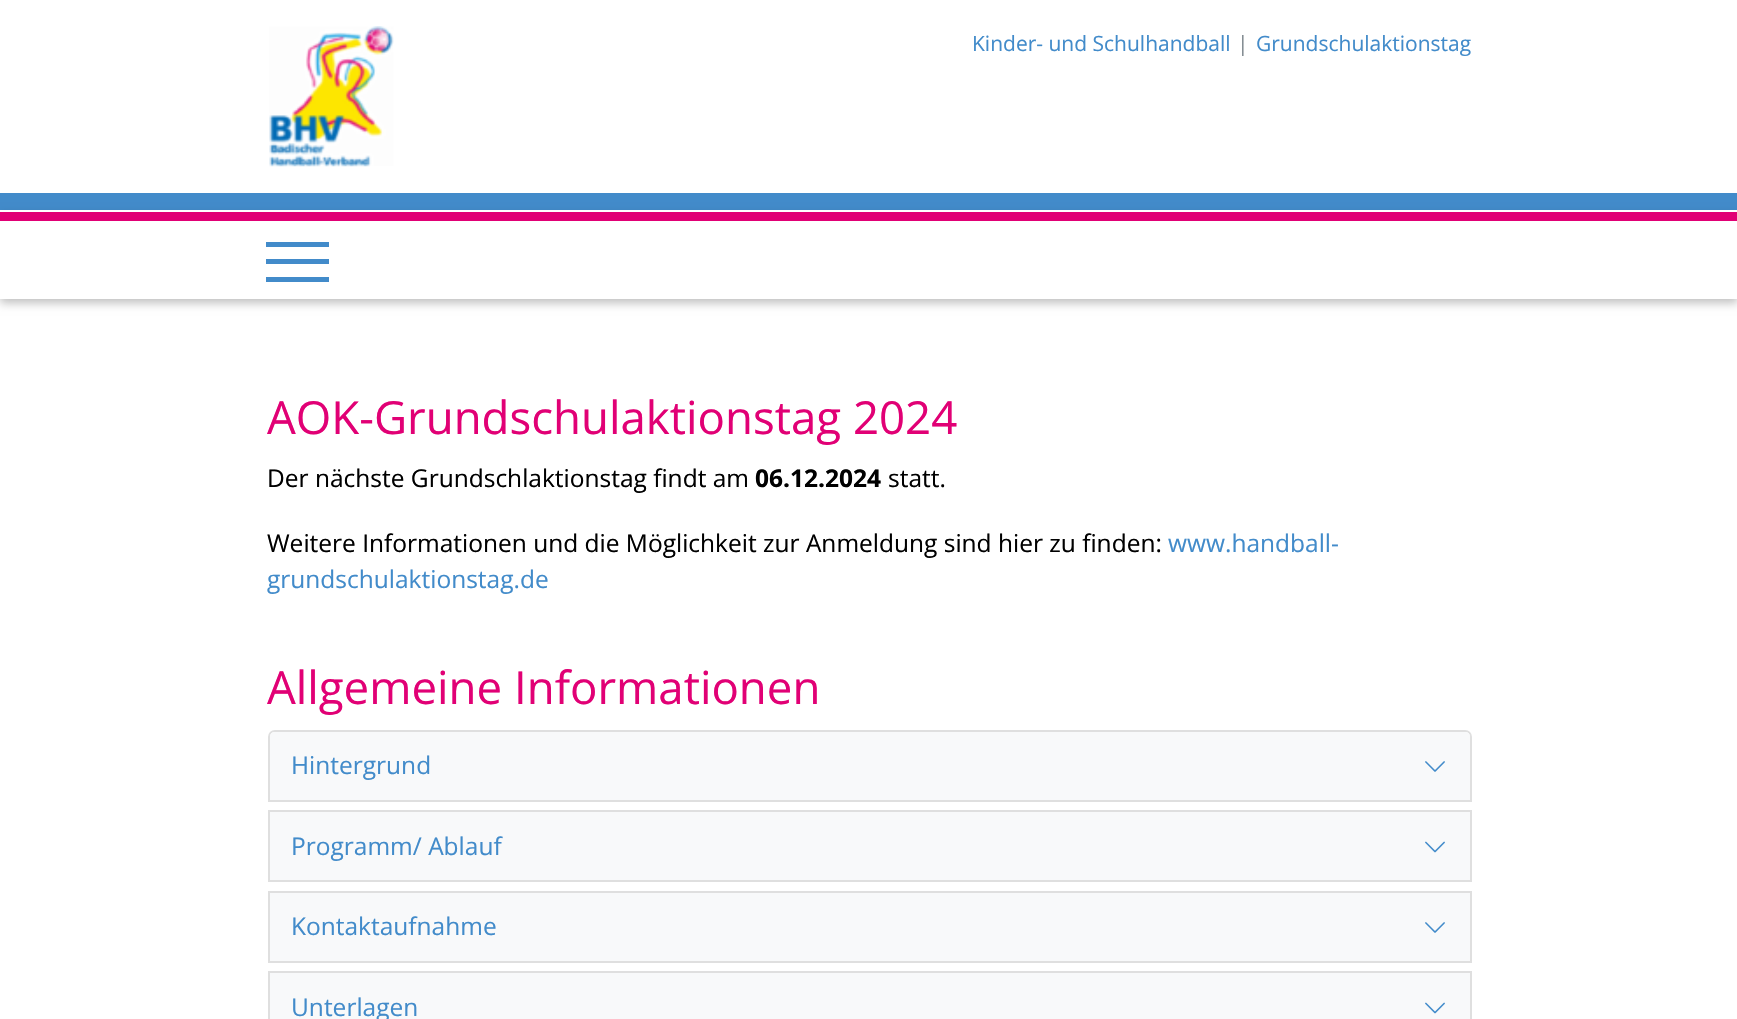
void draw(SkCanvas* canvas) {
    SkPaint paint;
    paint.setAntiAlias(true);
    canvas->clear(0xFFFFFFFF);
    paint.setColor(0xFF428BCA);
    canvas->drawRect(SkRect::MakeXYWH(0, 193, 1737, 17), paint);
    canvas->drawImageRect(SkImages::DeferredFromEncodedData(SkData::MakeFromFileName("img1.png")), SkRect::MakeXYWH(269, 26, 125, 141), SkSamplingOptions());
    SkFont font1(fontMgr->matchFamilyStyle("Open Sans", SkFontStyle::Normal()), 21);
    font1.setSubpixel(true);
    canvas->drawString("Kinder- und Schulhandball", 972, 51, font1, paint);
    paint.setColor(0xFF818A91);
    canvas->drawString("|", 1237, 51, font1, paint);
    paint.setColor(0xFF428BCA);
    canvas->drawString("Grundschulaktionstag", 1256, 51, font1, paint);
    canvas->save();
    canvas->clipPath(SkPathBuilder(SkPathFillType::kEvenOdd).moveTo(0, 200).lineTo(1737, 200).lineTo(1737, 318).lineTo(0, 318).close().moveTo(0, 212).lineTo(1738, 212).lineTo(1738, 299).lineTo(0, 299).close().detach(), true);
    paint.setColor(0x40000000);
    paint.setMaskFilter(SkMaskFilter::MakeBlur(kNormal_SkBlurStyle, 4.5f));
    canvas->drawRect(SkRect::MakeXYWH(0, 215, 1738, 88), paint);
    paint.setMaskFilter(nullptr);
    canvas->restore();
    paint.setColor(0xFFE10075);
    canvas->drawRect(SkRect::MakeXYWH(0, 212, 1737, 9), paint);
    paint.setColor(0xFFFFFFFF);
    canvas->drawRect(SkRect::MakeXYWH(0, 210, 1737, 2), paint);
    paint.setColor(0xFF428BCA);
    canvas->drawRect(SkRect::MakeXYWH(266, 242, 63, 5), paint);
    canvas->drawRect(SkRect::MakeXYWH(266, 259, 63, 5), paint);
    canvas->drawRect(SkRect::MakeXYWH(266, 277, 63, 5), paint);
    SkFont font2(fontMgr->matchFamilyStyle("Open Sans", SkFontStyle::Normal()), 45.6f);
    font2.setSubpixel(true);
    paint.setColor(0xFFE10075);
    canvas->drawString("AOK-Grundschulaktionstag 2024", 267, 434, font2, paint);
    SkFont font3(fontMgr->matchFamilyStyle("Open Sans", SkFontStyle::Normal()), 24.5f);
    font3.setSubpixel(true);
    paint.setColor(0xFF000000);
    canvas->drawString("Der nächste Grundschlaktionstag findt am", 267, 487, font3, paint);
    SkFont font4(fontMgr->matchFamilyStyle("Open Sans", SkFontStyle::Bold()), 24.5f);
    font4.setSubpixel(true);
    canvas->drawString("06.12.2024", 755, 487, font4, paint);
    canvas->drawString("statt.", 888, 487, font3, paint);
    canvas->drawString("Weitere Informationen und die Möglichkeit zur Anmeldung sind hier zu finden:", 267, 552, font3, paint);
    paint.setColor(0xFF428BCA);
    canvas->drawString("www.handball-", 1168, 552, font3, paint);
    canvas->drawString("grundschulaktionstag.de", 267, 588, font3, paint);
    paint.setColor(0xFFE10075);
    canvas->drawString("Allgemeine Informationen", 267, 704, font2, paint);
    paint.setStyle(SkPaint::kStroke_Style);
    paint.setStrokeWidth(2);
    paint.setColor(0xFFDFDFDF);
    canvas->drawPath(SkPathBuilder().moveTo(275, 731).lineTo(1465, 731).cubicTo(1468.5f, 731, 1471, 733.5f, 1471, 737).lineTo(1471, 801).lineTo(269, 801).lineTo(269, 737).cubicTo(269, 733.5f, 271.5f, 731, 275, 731).close().detach(), paint);
    paint.setStyle(SkPaint::kFill_Style);
    paint.setColor(0xFFF8F9FA);
    canvas->drawPath(SkPathBuilder().moveTo(275, 732).lineTo(1465, 732).cubicTo(1468, 732, 1470, 734, 1470, 737).lineTo(1470, 800).lineTo(270, 800).lineTo(270, 737).cubicTo(270, 734, 272, 732, 275, 732).close().detach(), paint);
    paint.setColor(0xFF428BCA);
    canvas->drawString("Hintergrund", 291, 774, font3, paint);
    canvas->drawImageRect(SkImages::DeferredFromEncodedData(SkData::MakeFromFileName("img2.png")), SkRect::MakeXYWH(1425, 761, 20, 11), SkSamplingOptions());
    paint.setStyle(SkPaint::kStroke_Style);
    paint.setColor(0xFFDFDFDF);
    canvas->drawRect(SkRect::MakeXYWH(269, 811, 1202, 70), paint);
    paint.setStyle(SkPaint::kFill_Style);
    paint.setColor(0xFFF8F9FA);
    canvas->drawRect(SkRect::MakeXYWH(270, 812, 1200, 68), paint);
    paint.setColor(0xFF428BCA);
    canvas->drawString("Programm/ Ablauf", 291, 855, font3, paint);
    canvas->drawImageRect(SkImages::DeferredFromEncodedData(SkData::MakeFromFileName("img3.png")), SkRect::MakeXYWH(1425, 841, 20, 12), SkSamplingOptions());
    paint.setStyle(SkPaint::kStroke_Style);
    paint.setColor(0xFFDFDFDF);
    canvas->drawRect(SkRect::MakeXYWH(269, 892, 1202, 70), paint);
    paint.setStyle(SkPaint::kFill_Style);
    paint.setColor(0xFFF8F9FA);
    canvas->drawRect(SkRect::MakeXYWH(270, 893, 1200, 68), paint);
    paint.setColor(0xFF428BCA);
    canvas->drawString("Kontaktaufnahme", 291, 935, font3, paint);
    canvas->drawImageRect(SkImages::DeferredFromEncodedData(SkData::MakeFromFileName("img2.png")), SkRect::MakeXYWH(1425, 922, 20, 11), SkSamplingOptions());
    paint.setStyle(SkPaint::kStroke_Style);
    paint.setColor(0xFFDFDFDF);
    canvas->drawRect(SkRect::MakeXYWH(269, 972, 1202, 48), paint);
    paint.setStyle(SkPaint::kFill_Style);
    paint.setColor(0xFFF8F9FA);
    canvas->drawRect(SkRect::MakeXYWH(270, 973, 1200, 46), paint);
    paint.setColor(0xFF428BCA);
    canvas->drawString("Unterlagen", 291, 1016, font3, paint);
    canvas->drawImageRect(SkImages::DeferredFromEncodedData(SkData::MakeFromFileName("img3.png")), SkRect::MakeXYWH(1425, 1002, 20, 12), SkSamplingOptions());
}
